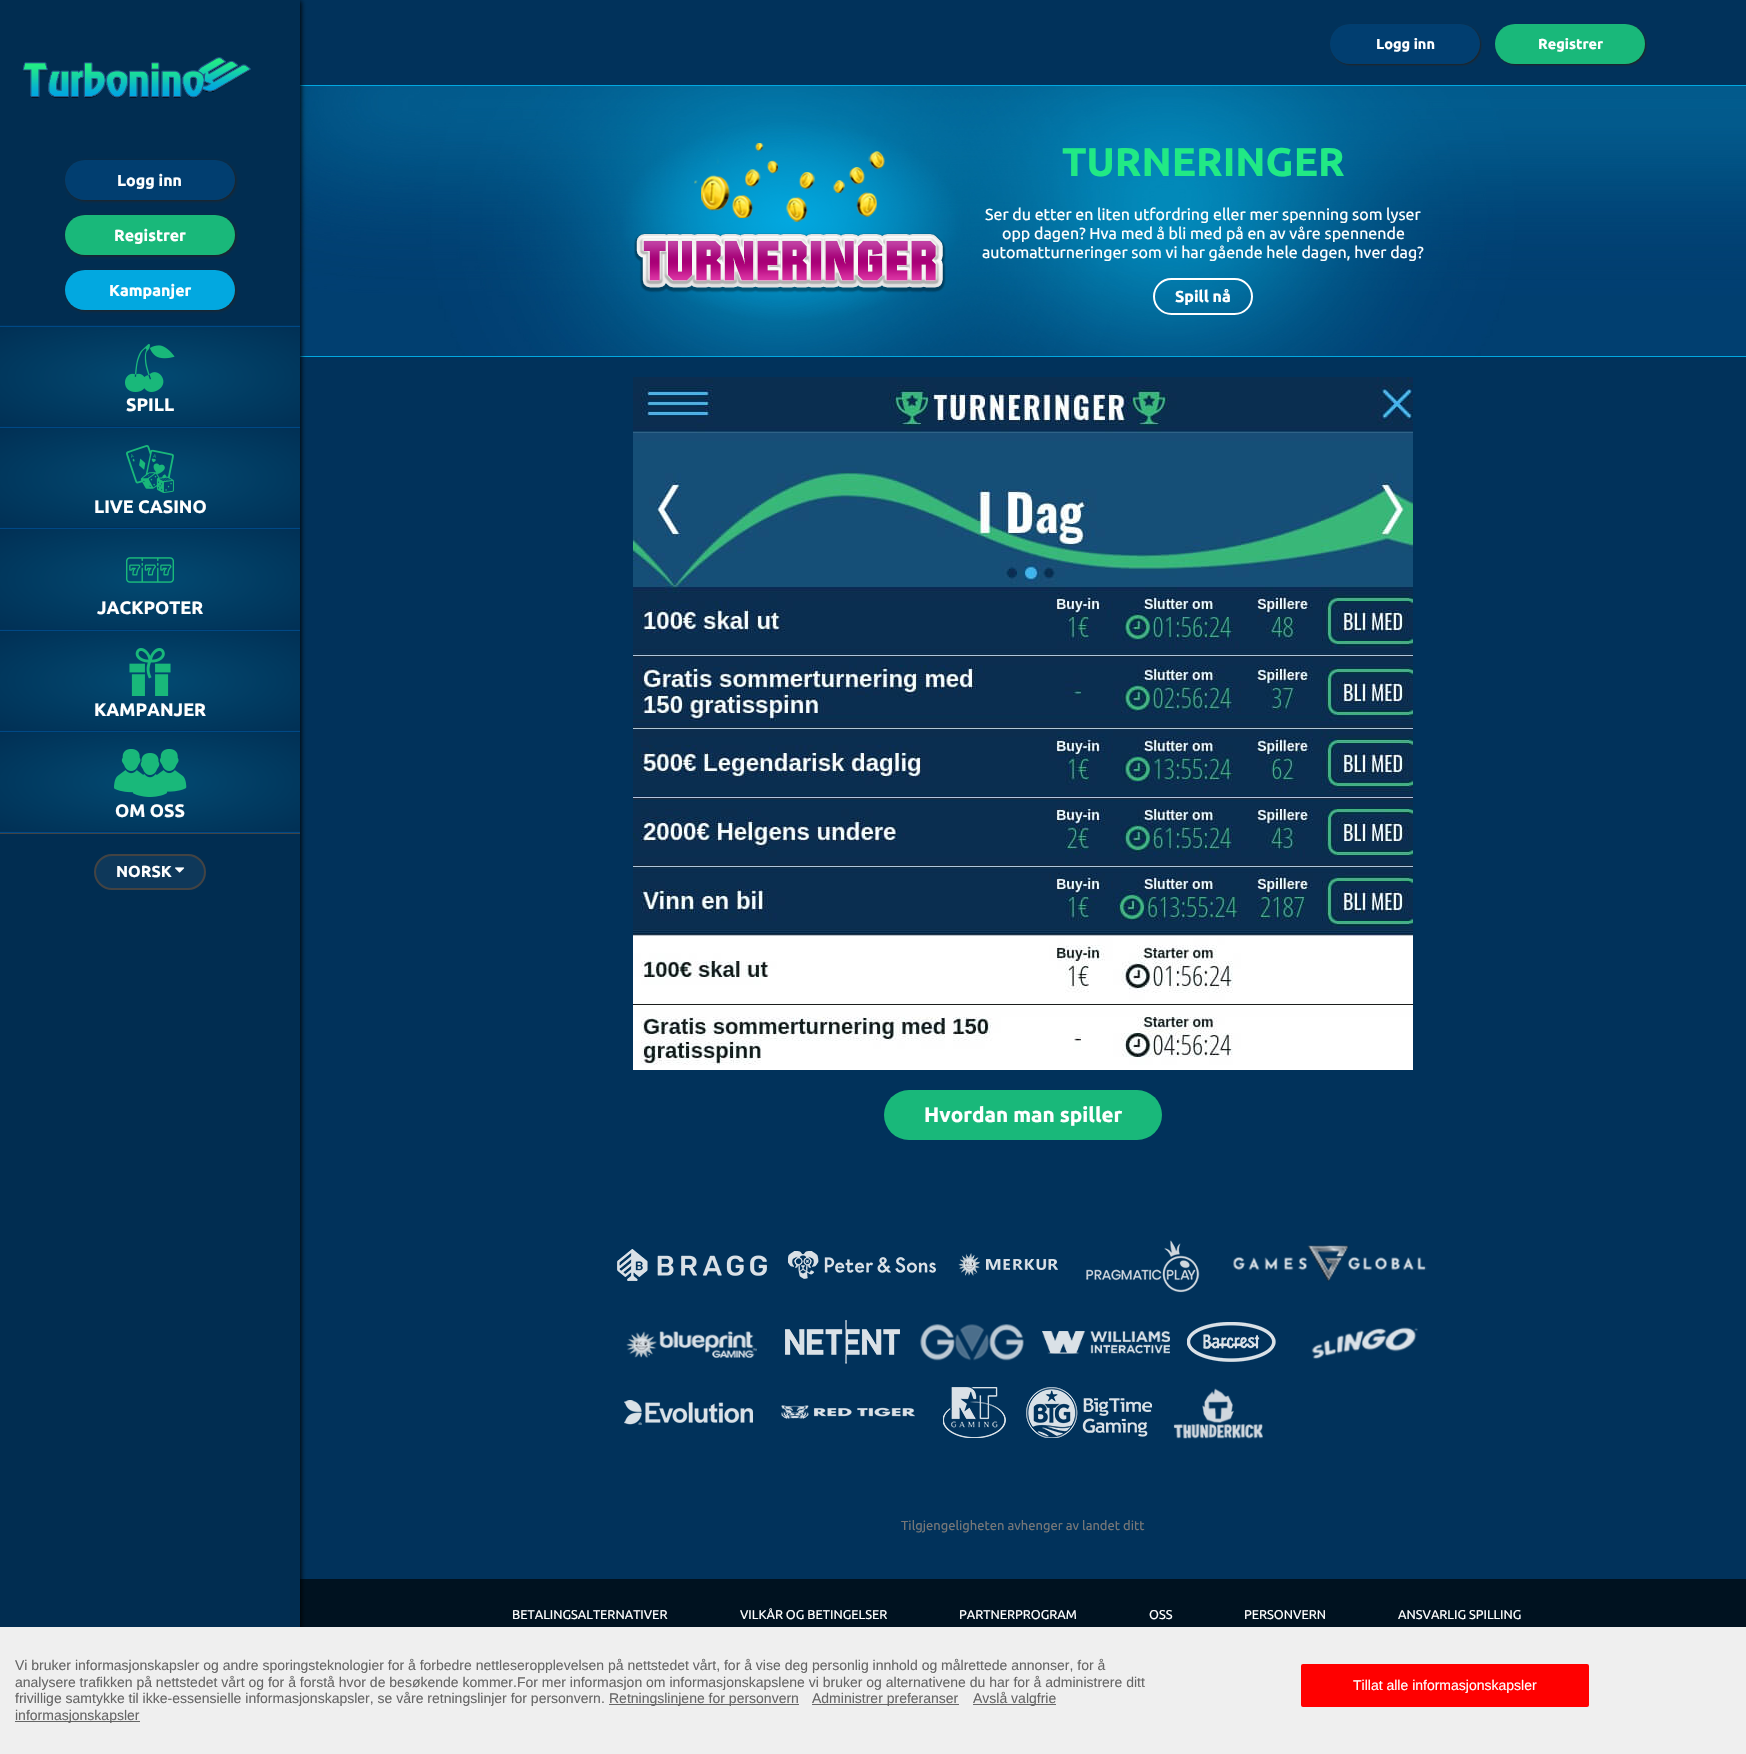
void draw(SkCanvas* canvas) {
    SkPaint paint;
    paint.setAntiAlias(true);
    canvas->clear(0xFF01325B);
    paint.setColor(0xFF222222);
    paint.setMaskFilter(SkMaskFilter::MakeBlur(kNormal_SkBlurStyle, 1));
    canvas->drawRoundRect(SkRect::MakeXYWH(1331, 25, 150, 40), 20, 20, paint);
    paint.setMaskFilter(nullptr);
    paint.setColor(0xFF013E70);
    canvas->drawRoundRect(SkRect::MakeXYWH(1330, 24, 150, 40), 20, 20, paint);
    SkFont font1(fontMgr->matchFamilyStyle("Ubuntu", SkFontStyle::Bold()), 14.5f);
    font1.setSubpixel(true);
    paint.setColor(0xFFFFFFFF);
    canvas->drawString("Logg inn", 1376, 49, font1, paint);
    paint.setColor(0xFF222222);
    paint.setMaskFilter(SkMaskFilter::MakeBlur(kNormal_SkBlurStyle, 1));
    canvas->drawRoundRect(SkRect::MakeXYWH(1496, 25, 150, 40), 20, 20, paint);
    paint.setMaskFilter(nullptr);
    paint.setColor(0xFF19B87A);
    canvas->drawRoundRect(SkRect::MakeXYWH(1495, 24, 150, 40), 20, 20, paint);
    paint.setColor(0xFFFFFFFF);
    canvas->drawString("Registrer", 1538, 49, font1, paint);
    canvas->drawImageRect(SkImages::DeferredFromEncodedData(SkData::MakeFromFileName("img8.png")), SkRect::MakeXYWH(300, 86, 1446, 270), SkSamplingOptions());
    paint.setColor(0xFF02A8E0);
    canvas->drawRect(SkRect::MakeXYWH(300, 85, 1446, 1), paint);
    canvas->drawRect(SkRect::MakeXYWH(300, 356, 1446, 1), paint);
    paint.setColor(0xFF001220);
    canvas->drawRect(SkRect::MakeXYWH(300, 1579, 1446, 48), paint);
    paint.setColor(0xFF000000);
    paint.setMaskFilter(SkMaskFilter::MakeBlur(kNormal_SkBlurStyle, 2.5f));
    canvas->drawRect(SkRect::MakeXYWH(1, 1, 300, 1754), paint);
    paint.setMaskFilter(nullptr);
    paint.setColor(0xFF012D51);
    canvas->drawRect(SkRect::MakeXYWH(0, 0, 300, 1627), paint);
    canvas->drawImageRect(SkImages::DeferredFromEncodedData(SkData::MakeFromFileName("img1.png")), SkRect::MakeXYWH(22, 57, 229, 42), SkSamplingOptions());
    paint.setColor(0xFF222222);
    paint.setMaskFilter(SkMaskFilter::MakeBlur(kNormal_SkBlurStyle, 1.5f));
    canvas->drawRoundRect(SkRect::MakeXYWH(66, 161, 170, 40), 20, 20, paint);
    paint.setMaskFilter(nullptr);
    paint.setColor(0xFF013E70);
    canvas->drawRoundRect(SkRect::MakeXYWH(65, 160, 170, 40), 20, 20, paint);
    SkFont font2(fontMgr->matchFamilyStyle("Ubuntu", SkFontStyle::Bold()), 16);
    font2.setSubpixel(true);
    paint.setColor(0xFFFFFFFF);
    canvas->drawString("Logg inn", 117, 186, font2, paint);
    paint.setColor(0xFF222222);
    paint.setMaskFilter(SkMaskFilter::MakeBlur(kNormal_SkBlurStyle, 1.5f));
    canvas->drawRoundRect(SkRect::MakeXYWH(66, 216, 170, 40), 20, 20, paint);
    paint.setMaskFilter(nullptr);
    paint.setColor(0xFF19B87A);
    canvas->drawRoundRect(SkRect::MakeXYWH(65, 215, 170, 40), 20, 20, paint);
    paint.setColor(0xFFFFFFFF);
    canvas->drawString("Registrer", 114, 241, font2, paint);
    paint.setColor(0xFF222222);
    paint.setMaskFilter(SkMaskFilter::MakeBlur(kNormal_SkBlurStyle, 1.5f));
    canvas->drawRoundRect(SkRect::MakeXYWH(66, 271, 170, 40), 20, 20, paint);
    paint.setMaskFilter(nullptr);
    paint.setColor(0xFF02A8E0);
    canvas->drawRoundRect(SkRect::MakeXYWH(65, 270, 170, 40), 20, 20, paint);
    paint.setColor(0xFFFFFFFF);
    canvas->drawString("Kampanjer", 109, 296, font2, paint);
    paint.setColor(0xFF01325B);
    canvas->drawRect(SkRect::MakeXYWH(0, 325, 300, 1), paint);
    paint.setColor(0xFF004986);
    canvas->drawRect(SkRect::MakeXYWH(0, 832, 300, 1), paint);
    {
        const SkColor colors[] = {0xFF024A72, 0xFF013055};
        const float stops[] = {0, 1};
        SkMatrix m = SkMatrix::Translate(150, 377).preScale(212, 70);
        paint.setShader(SkGradientShader::MakeRadial({0, 0}, 1, colors, stops, 2, SkTileMode::kClamp, 0, &m));
        paint.setAlpha(255);
    }
    canvas->drawRect(SkRect::MakeXYWH(0, 327, 300, 99), paint);
    paint.setShader(nullptr);
    paint.setColor(0xFF004986);
    canvas->drawRect(SkRect::MakeXYWH(0, 326, 300, 1), paint);
    paint.setColor(0xFF01325B);
    canvas->drawRect(SkRect::MakeXYWH(0, 426, 300, 1), paint);
    canvas->drawImageRect(SkImages::DeferredFromEncodedData(SkData::MakeFromFileName("img2.png")), SkRect::MakeXYWH(125, 344, 50, 48), SkSamplingOptions());
    SkFont font3(fontMgr->matchFamilyStyle("Ubuntu", SkFontStyle::Bold()), 18);
    font3.setSubpixel(true);
    paint.setColor(0xFFFFFFFF);
    canvas->drawString("SPILL", 126, 411, font3, paint);
    {
        const SkColor colors[] = {0xFF024A72, 0xFF013055};
        const float stops[] = {0, 1};
        SkMatrix m = SkMatrix::Translate(150, 478).preScale(212, 70);
        paint.setShader(SkGradientShader::MakeRadial({0, 0}, 1, colors, stops, 2, SkTileMode::kClamp, 0, &m));
        paint.setAlpha(255);
    }
    canvas->drawRect(SkRect::MakeXYWH(0, 428, 300, 99), paint);
    paint.setShader(nullptr);
    paint.setColor(0xFF004986);
    canvas->drawRect(SkRect::MakeXYWH(0, 427, 300, 1), paint);
    paint.setColor(0xFF01325B);
    canvas->drawRect(SkRect::MakeXYWH(0, 527, 300, 1), paint);
    canvas->drawImageRect(SkImages::DeferredFromEncodedData(SkData::MakeFromFileName("img3.png")), SkRect::MakeXYWH(126, 445, 48, 48), SkSamplingOptions());
    paint.setColor(0xFFFFFFFF);
    canvas->drawString("LIVE CASINO", 94, 513, font3, paint);
    {
        const SkColor colors[] = {0xFF024A72, 0xFF013055};
        const float stops[] = {0, 1};
        SkMatrix m = SkMatrix::Translate(150, 579).preScale(212, 71);
        paint.setShader(SkGradientShader::MakeRadial({0, 0}, 1, colors, stops, 2, SkTileMode::kClamp, 0, &m));
        paint.setAlpha(255);
    }
    canvas->drawRect(SkRect::MakeXYWH(0, 529, 300, 100), paint);
    paint.setShader(nullptr);
    paint.setColor(0xFF004986);
    canvas->drawRect(SkRect::MakeXYWH(0, 528, 300, 1), paint);
    paint.setColor(0xFF01325B);
    canvas->drawRect(SkRect::MakeXYWH(0, 629, 300, 1), paint);
    canvas->drawImageRect(SkImages::DeferredFromEncodedData(SkData::MakeFromFileName("img4.png")), SkRect::MakeXYWH(126, 557, 48, 26), SkSamplingOptions());
    paint.setColor(0xFFFFFFFF);
    canvas->drawString("JACKPOTER", 97, 614, font3, paint);
    {
        const SkColor colors[] = {0xFF024A72, 0xFF013055};
        const float stops[] = {0, 1};
        SkMatrix m = SkMatrix::Translate(150, 681).preScale(212, 70);
        paint.setShader(SkGradientShader::MakeRadial({0, 0}, 1, colors, stops, 2, SkTileMode::kClamp, 0, &m));
        paint.setAlpha(255);
    }
    canvas->drawRect(SkRect::MakeXYWH(0, 631, 300, 99), paint);
    paint.setShader(nullptr);
    paint.setColor(0xFF004986);
    canvas->drawRect(SkRect::MakeXYWH(0, 630, 300, 1), paint);
    paint.setColor(0xFF01325B);
    canvas->drawRect(SkRect::MakeXYWH(0, 730, 300, 1), paint);
    canvas->drawImageRect(SkImages::DeferredFromEncodedData(SkData::MakeFromFileName("img5.png")), SkRect::MakeXYWH(129, 648, 42, 48), SkSamplingOptions());
    paint.setColor(0xFFFFFFFF);
    canvas->drawString("KAMPANJER", 94, 716, font3, paint);
    {
        const SkColor colors[] = {0xFF024A72, 0xFF013055};
        const float stops[] = {0, 1};
        SkMatrix m = SkMatrix::Translate(150, 782).preScale(212, 70);
        paint.setShader(SkGradientShader::MakeRadial({0, 0}, 1, colors, stops, 2, SkTileMode::kClamp, 0, &m));
        paint.setAlpha(255);
    }
    canvas->drawRect(SkRect::MakeXYWH(0, 732, 300, 99), paint);
    paint.setShader(nullptr);
    paint.setColor(0xFF004986);
    canvas->drawRect(SkRect::MakeXYWH(0, 731, 300, 1), paint);
    paint.setColor(0xFF01325B);
    canvas->drawRect(SkRect::MakeXYWH(0, 831, 300, 1), paint);
    canvas->drawImageRect(SkImages::DeferredFromEncodedData(SkData::MakeFromFileName("img6.png")), SkRect::MakeXYWH(114, 749, 73, 48), SkSamplingOptions());
    paint.setColor(0xFFFFFFFF);
    canvas->drawString("OM OSS", 115, 817, font3, paint);
    paint.setColor(0xFF434343);
    canvas->drawRect(SkRect::MakeXYWH(0, 833, 300, 1), paint);
    paint.setColor(0xFF0E385A);
    canvas->drawRoundRect(SkRect::MakeXYWH(95, 855, 110, 34), 17, 17, paint);
    paint.setStyle(SkPaint::kStroke_Style);
    paint.setStrokeWidth(2);
    paint.setColor(0xFF434343);
    canvas->drawRoundRect(SkRect::MakeXYWH(95, 855, 110, 34), 17, 17, paint);
    paint.setStyle(SkPaint::kFill_Style);
    paint.setColor(0xFFFFFFFF);
    canvas->drawString("NORSK", 116, 877, font2, paint);
    canvas->drawImageRect(SkImages::DeferredFromEncodedData(SkData::MakeFromFileName("img7.png")), SkRect::MakeXYWH(175, 867, 10, 6), SkSamplingOptions());
    canvas->drawImageRect(SkImages::DeferredFromEncodedData(SkData::MakeFromFileName("img9.png")), SkRect::MakeXYWH(634, 143, 312, 150), SkSamplingOptions());
    SkFont font4(fontMgr->matchFamilyStyle("Ubuntu", SkFontStyle::Bold()), 40);
    font4.setSubpixel(true);
    paint.setColor(0xFF21E985);
    canvas->drawString("TURNERINGER", 1062, 176, font4, paint);
    SkFont font5(fontMgr->matchFamilyStyle("Ubuntu", SkFontStyle::Normal()), 16);
    font5.setSubpixel(true);
    paint.setColor(0xFFFFFFFF);
    canvas->drawString("Ser du etter en liten utfordring eller mer spenning som lyser", 985, 220, font5, paint);
    canvas->drawString("opp dagen? Hva med å bli med på en av våre spennende", 1002, 239, font5, paint);
    canvas->drawString("automatturneringer som vi har gående hele dagen, hver dag?", 982, 258, font5, paint);
    paint.setStyle(SkPaint::kStroke_Style);
    canvas->drawRoundRect(SkRect::MakeXYWH(1154, 279, 98, 35), 17.5f, 17.5f, paint);
    paint.setStyle(SkPaint::kFill_Style);
    canvas->drawString("Spill nå", 1175, 302, font2, paint);
    canvas->drawImageRect(SkImages::DeferredFromEncodedData(SkData::MakeFromFileName("img10.png")), SkRect::MakeXYWH(633, 377, 780, 693), SkSamplingOptions());
    paint.setColor(0xFF19B87A);
    canvas->drawRoundRect(SkRect::MakeXYWH(884, 1090, 278, 50), 25, 25, paint);
    SkFont font6(fontMgr->matchFamilyStyle("Ubuntu", SkFontStyle::Bold()), 20.75f);
    font6.setSubpixel(true);
    paint.setColor(0xFFFFFFFF);
    canvas->drawString("Hvordan man spiller", 924, 1122, font6, paint);
    canvas->drawImageRect(SkImages::DeferredFromEncodedData(SkData::MakeFromFileName("img11.png")), SkRect::MakeXYWH(617, 1249, 150, 32), SkSamplingOptions());
    canvas->drawImageRect(SkImages::DeferredFromEncodedData(SkData::MakeFromFileName("img12.png")), SkRect::MakeXYWH(788, 1251, 148, 28), SkSamplingOptions());
    canvas->drawImageRect(SkImages::DeferredFromEncodedData(SkData::MakeFromFileName("img13.png")), SkRect::MakeXYWH(958, 1253, 100, 23), SkSamplingOptions());
    canvas->drawImageRect(SkImages::DeferredFromEncodedData(SkData::MakeFromFileName("img14.png")), SkRect::MakeXYWH(1086, 1240, 114, 53), SkSamplingOptions());
    canvas->drawImageRect(SkImages::DeferredFromEncodedData(SkData::MakeFromFileName("img15.png")), SkRect::MakeXYWH(1233, 1244, 194, 38), SkSamplingOptions());
    canvas->drawImageRect(SkImages::DeferredFromEncodedData(SkData::MakeFromFileName("img16.png")), SkRect::MakeXYWH(626, 1331, 131, 27), SkSamplingOptions());
    canvas->drawImageRect(SkImages::DeferredFromEncodedData(SkData::MakeFromFileName("img17.png")), SkRect::MakeXYWH(785, 1320, 115, 44), SkSamplingOptions());
    canvas->drawImageRect(SkImages::DeferredFromEncodedData(SkData::MakeFromFileName("img18.png")), SkRect::MakeXYWH(920, 1324, 104, 37), SkSamplingOptions());
    canvas->drawImageRect(SkImages::DeferredFromEncodedData(SkData::MakeFromFileName("img19.png")), SkRect::MakeXYWH(1042, 1331, 128, 23), SkSamplingOptions());
    canvas->drawImageRect(SkImages::DeferredFromEncodedData(SkData::MakeFromFileName("img20.png")), SkRect::MakeXYWH(1187, 1322, 89, 40), SkSamplingOptions());
    canvas->drawImageRect(SkImages::DeferredFromEncodedData(SkData::MakeFromFileName("img21.png")), SkRect::MakeXYWH(1311, 1327, 107, 32), SkSamplingOptions());
    canvas->drawImageRect(SkImages::DeferredFromEncodedData(SkData::MakeFromFileName("img22.png")), SkRect::MakeXYWH(624, 1400, 129, 25), SkSamplingOptions());
    canvas->drawImageRect(SkImages::DeferredFromEncodedData(SkData::MakeFromFileName("img23.png")), SkRect::MakeXYWH(781, 1405, 134, 14), SkSamplingOptions());
    canvas->drawImageRect(SkImages::DeferredFromEncodedData(SkData::MakeFromFileName("img24.png")), SkRect::MakeXYWH(943, 1387, 63, 51), SkSamplingOptions());
    canvas->drawImageRect(SkImages::DeferredFromEncodedData(SkData::MakeFromFileName("img25.png")), SkRect::MakeXYWH(1026, 1387, 126, 51), SkSamplingOptions());
    canvas->drawImageRect(SkImages::DeferredFromEncodedData(SkData::MakeFromFileName("img26.png")), SkRect::MakeXYWH(1173, 1388, 90, 51), SkSamplingOptions());
    SkFont font7(fontMgr->matchFamilyStyle("Ubuntu", SkFontStyle::Normal()), 13);
    font7.setSubpixel(true);
    paint.setColor(0xFF777777);
    canvas->drawString("Tilgjengeligheten avhenger av landet ditt", 901, 1530, font7, paint);
    SkFont font8(fontMgr->matchFamilyStyle("Ubuntu", SkFontStyle::Normal()), 12.75f);
    font8.setSubpixel(true);
    paint.setColor(0xFFFFFFFF);
    canvas->drawString("BETALINGSALTERNATIVER", 512, 1619, font8, paint);
    canvas->drawString("VILKÅR OG BETINGELSER", 740, 1619, font8, paint);
    canvas->drawString("PARTNERPROGRAM", 959, 1619, font8, paint);
    canvas->drawString("OSS", 1149, 1619, font8, paint);
    canvas->drawString("PERSONVERN", 1244, 1619, font8, paint);
    canvas->drawString("ANSVARLIG SPILLING", 1398, 1619, font8, paint);
    paint.setColor(0xFFEFEFEF);
    canvas->drawRect(SkRect::MakeXYWH(0, 1627, 1746, 127), paint);
    SkFont font9(fontMgr->matchFamilyStyle("Liberation Sans", SkFontStyle::Normal()), 14);
    font9.setSubpixel(true);
    paint.setColor(0xFF666666);
    canvas->drawString("Vi bruker informasjonskapsler og andre sporingsteknologier for å forbedre nettleseropplevelsen på nettstedet vårt, for å vise deg personlig innhold og målrettede annonser, for å", 15, 1670, font9, paint);
    canvas->drawString("analysere trafikken på nettstedet vårt og for å forstå hvor de besøkende kommer.For mer informasjon om informasjonskapslene vi bruker og alternativene du har for å administrere ditt", 15, 1687, font9, paint);
    canvas->drawString("frivillige samtykke til ikke-essensielle informasjonskapsler, se våre retningslinjer for personvern.", 15, 1703, font9, paint);
    canvas->drawRect(SkRect::MakeXYWH(609, 1704, 190, 1), paint);
    canvas->drawString("Retningslinjene for personvern", 609, 1703, font9, paint);
    canvas->drawRect(SkRect::MakeXYWH(812, 1704, 147, 1), paint);
    canvas->drawString("Administrer preferanser", 812, 1703, font9, paint);
    canvas->drawRect(SkRect::MakeXYWH(973, 1704, 83, 1), paint);
    canvas->drawString("Avslå valgfrie", 973, 1703, font9, paint);
    canvas->drawRect(SkRect::MakeXYWH(15, 1721, 125, 1), paint);
    canvas->drawString("informasjonskapsler", 15, 1720, font9, paint);
    paint.setColor(0xFFFF0000);
    canvas->drawRoundRect(SkRect::MakeXYWH(1301, 1664, 288, 43), 2, 2, paint);
    paint.setColor(0xFFFFFFFF);
    canvas->drawString("Tillat alle informasjonskapsler", 1353, 1690, font9, paint);
}
